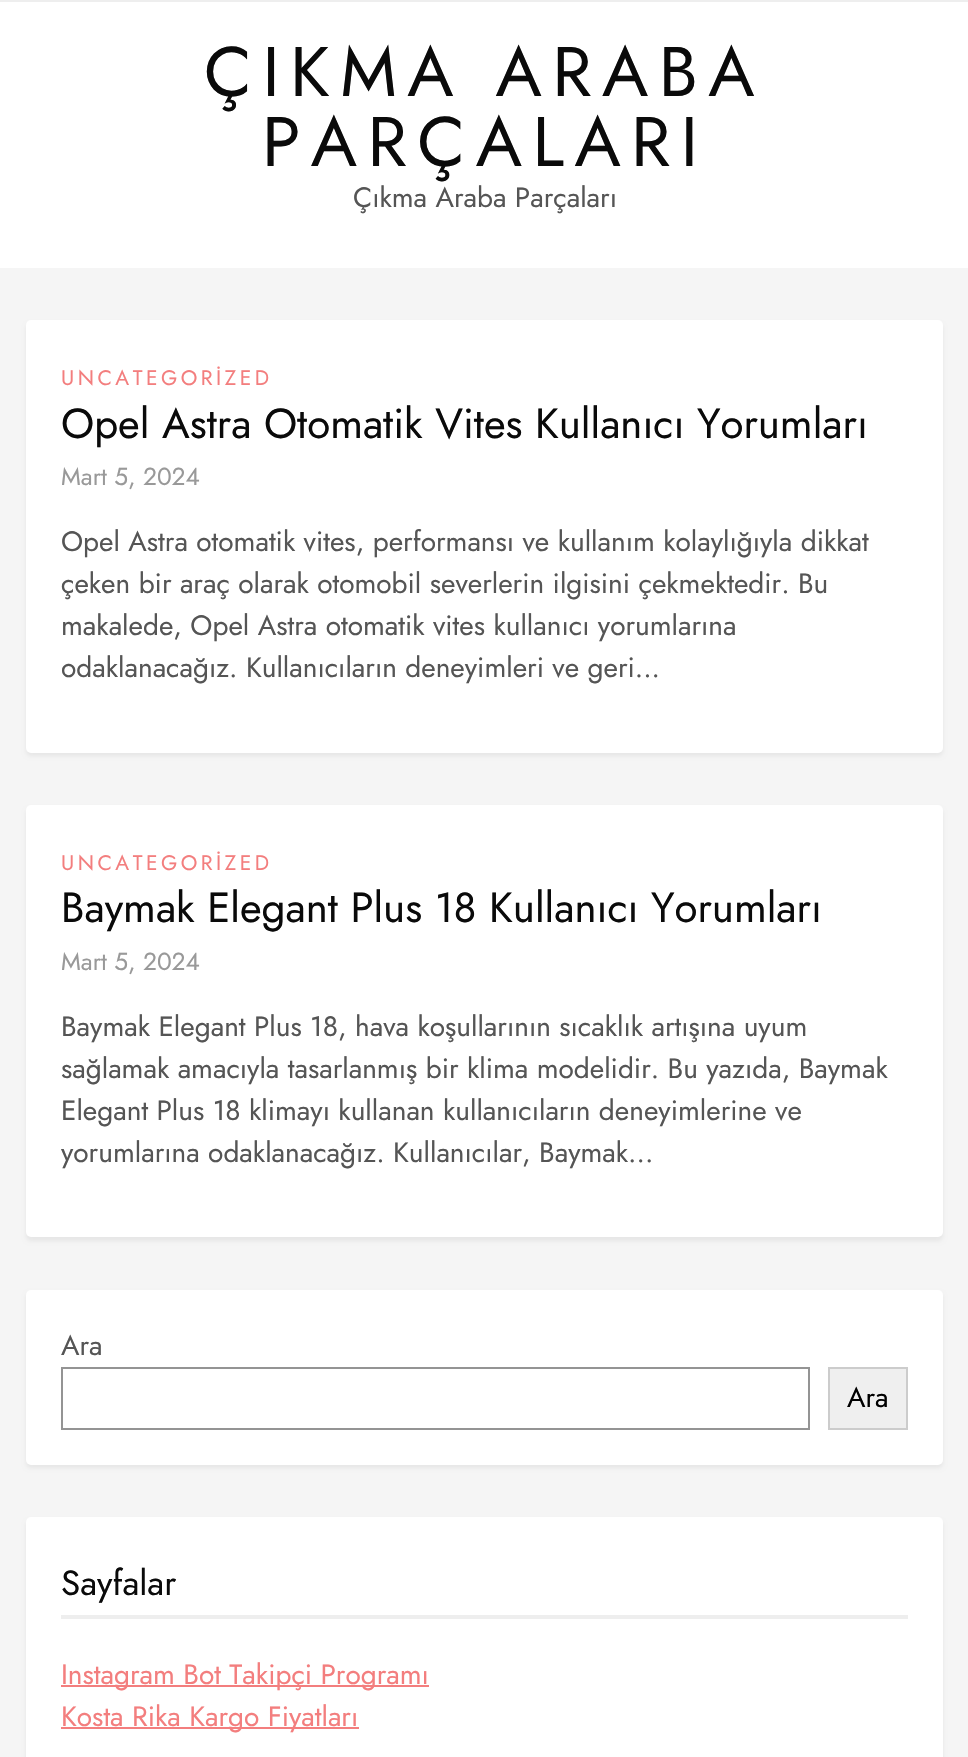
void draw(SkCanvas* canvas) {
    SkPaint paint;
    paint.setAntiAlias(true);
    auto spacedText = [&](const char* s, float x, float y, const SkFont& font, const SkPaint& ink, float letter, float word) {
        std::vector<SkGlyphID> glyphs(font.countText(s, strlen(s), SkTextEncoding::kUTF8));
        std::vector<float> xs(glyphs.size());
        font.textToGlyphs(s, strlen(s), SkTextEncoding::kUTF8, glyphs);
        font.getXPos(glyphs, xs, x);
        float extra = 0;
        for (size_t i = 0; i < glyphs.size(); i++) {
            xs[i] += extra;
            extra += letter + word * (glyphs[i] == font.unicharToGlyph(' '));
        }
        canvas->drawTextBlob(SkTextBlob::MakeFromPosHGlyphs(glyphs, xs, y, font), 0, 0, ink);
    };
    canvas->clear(0xFFF5F5F5);
    paint.setColor(0xFFFFFFFF);
    canvas->drawRect(SkRect::MakeXYWH(0, 2, 968, 266), paint);
    paint.setColor(0xFFEEEEEE);
    canvas->drawRect(SkRect::MakeXYWH(0, 0, 968, 2), paint);
    SkFont font1(fontMgr->matchFamilyStyle("Jost", SkFontStyle::Normal()), 70);
    font1.setSubpixel(true);
    paint.setColor(0xFF0A0A0A);
    spacedText("ÇIKMA ARABA", 204, 96, font1, paint, 10.5f, 0);
    spacedText("PARÇALARI", 262, 166, font1, paint, 10.5f, 0);
    SkFont font2(fontMgr->matchFamilyStyle("Jost", SkFontStyle::Normal()), 28);
    font2.setSubpixel(true);
    paint.setColor(0xFF555555);
    canvas->drawString("Çıkma Araba Parçaları", 353, 207, font2, paint);
    paint.setColor(0x0F000000);
    paint.setMaskFilter(SkMaskFilter::MakeBlur(kNormal_SkBlurStyle, 2));
    canvas->drawRoundRect(SkRect::MakeXYWH(26, 324, 917, 432), 5, 5, paint);
    paint.setMaskFilter(nullptr);
    paint.setColor(0xFFFFFFFF);
    canvas->drawRoundRect(SkRect::MakeXYWH(26, 320, 917, 433), 5, 5, paint);
    SkFont font3(fontMgr->matchFamilyStyle("Jost", SkFontStyle::Normal()), 21);
    font3.setSubpixel(true);
    paint.setColor(0xFFF37E7E);
    spacedText("UNCATEGORİZED", 61, 385, font3, paint, 3.5f, 0);
    SkFont font4(fontMgr->matchFamilyStyle("Jost", SkFontStyle::Normal()), 42);
    font4.setSubpixel(true);
    paint.setColor(0xFF0A0A0A);
    canvas->drawString("Opel Astra Otomatik Vites Kullanıcı Yorumları", 61, 438, font4, paint);
    SkFont font5(fontMgr->matchFamilyStyle("Jost", SkFontStyle::Normal()), 24.5f);
    font5.setSubpixel(true);
    paint.setColor(0xFF999999);
    canvas->drawString("Mart 5, 2024", 61, 485, font5, paint);
    paint.setColor(0xFF555555);
    canvas->drawString("Opel Astra otomatik vites, performansı ve kullanım kolaylığıyla dikkat", 61, 551, font2, paint);
    canvas->drawString("çeken bir araç olarak otomobil severlerin ilgisini çekmektedir. Bu", 61, 593, font2, paint);
    canvas->drawString("makalede, Opel Astra otomatik vites kullanıcı yorumlarına", 61, 635, font2, paint);
    canvas->drawString("odaklanacağız. Kullanıcıların deneyimleri ve geri...", 61, 677, font2, paint);
    paint.setColor(0x0F000000);
    paint.setMaskFilter(SkMaskFilter::MakeBlur(kNormal_SkBlurStyle, 2));
    canvas->drawRoundRect(SkRect::MakeXYWH(26, 809, 917, 432), 5, 5, paint);
    paint.setMaskFilter(nullptr);
    paint.setColor(0xFFFFFFFF);
    canvas->drawRoundRect(SkRect::MakeXYWH(26, 805, 917, 432), 5, 5, paint);
    paint.setColor(0xFFF37E7E);
    spacedText("UNCATEGORİZED", 61, 870, font3, paint, 3.5f, 0);
    paint.setColor(0xFF0A0A0A);
    canvas->drawString("Baymak Elegant Plus 18 Kullanıcı Yorumları", 61, 922, font4, paint);
    paint.setColor(0xFF999999);
    canvas->drawString("Mart 5, 2024", 61, 970, font5, paint);
    paint.setColor(0xFF555555);
    canvas->drawString("Baymak Elegant Plus 18, hava koşullarının sıcaklık artışına uyum", 61, 1036, font2, paint);
    canvas->drawString("sağlamak amacıyla tasarlanmış bir klima modelidir. Bu yazıda, Baymak", 61, 1078, font2, paint);
    canvas->drawString("Elegant Plus 18 klimayı kullanan kullanıcıların deneyimlerine ve", 61, 1120, font2, paint);
    canvas->drawString("yorumlarına odaklanacağız. Kullanıcılar, Baymak...", 61, 1162, font2, paint);
    paint.setColor(0x0F000000);
    paint.setMaskFilter(SkMaskFilter::MakeBlur(kNormal_SkBlurStyle, 2));
    canvas->drawRoundRect(SkRect::MakeXYWH(26, 1293, 917, 175), 5, 5, paint);
    paint.setMaskFilter(nullptr);
    paint.setColor(0xFFFFFFFF);
    canvas->drawRoundRect(SkRect::MakeXYWH(26, 1290, 917, 175), 5, 5, paint);
    paint.setColor(0xFF555555);
    canvas->drawString("Ara", 61, 1355, font2, paint);
    paint.setStyle(SkPaint::kStroke_Style);
    paint.setStrokeWidth(2);
    paint.setColor(0xFF949494);
    canvas->drawRect(SkRect::MakeXYWH(62, 1368, 747, 61), paint);
    paint.setStyle(SkPaint::kFill_Style);
    paint.setColor(0xFFEFEFEF);
    canvas->drawRect(SkRect::MakeXYWH(829, 1368, 78, 61), paint);
    paint.setStyle(SkPaint::kStroke_Style);
    paint.setColor(0xFFCCCCCC);
    canvas->drawRect(SkRect::MakeXYWH(829, 1368, 78, 61), paint);
    paint.setStyle(SkPaint::kFill_Style);
    paint.setColor(0xFF000000);
    canvas->drawString("Ara", 847, 1407, font2, paint);
    paint.setColor(0x0F000000);
    paint.setMaskFilter(SkMaskFilter::MakeBlur(kNormal_SkBlurStyle, 2));
    canvas->drawRoundRect(SkRect::MakeXYWH(26, 1521, 917, 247), 5, 5, paint);
    paint.setMaskFilter(nullptr);
    paint.setColor(0xFFFFFFFF);
    canvas->drawRoundRect(SkRect::MakeXYWH(26, 1517, 917, 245), 5, 5, paint);
    paint.setColor(0xFFEEEEEE);
    canvas->drawRect(SkRect::MakeXYWH(61, 1615, 847, 4), paint);
    SkFont font6(fontMgr->matchFamilyStyle("Jost", SkFontStyle::Normal()), 35);
    font6.setSubpixel(true);
    paint.setColor(0xFF0A0A0A);
    canvas->drawString("Sayfalar", 61, 1595, font6, paint);
    paint.setColor(0xFFF37E7E);
    canvas->drawRect(SkRect::MakeXYWH(61, 1685, 368, 2), paint);
    canvas->drawString("Instagram Bot Takipçi Programı", 61, 1684, font2, paint);
    canvas->drawRect(SkRect::MakeXYWH(61, 1727, 298, 2), paint);
    canvas->drawString("Kosta Rika Kargo Fiyatları", 61, 1726, font2, paint);
}
